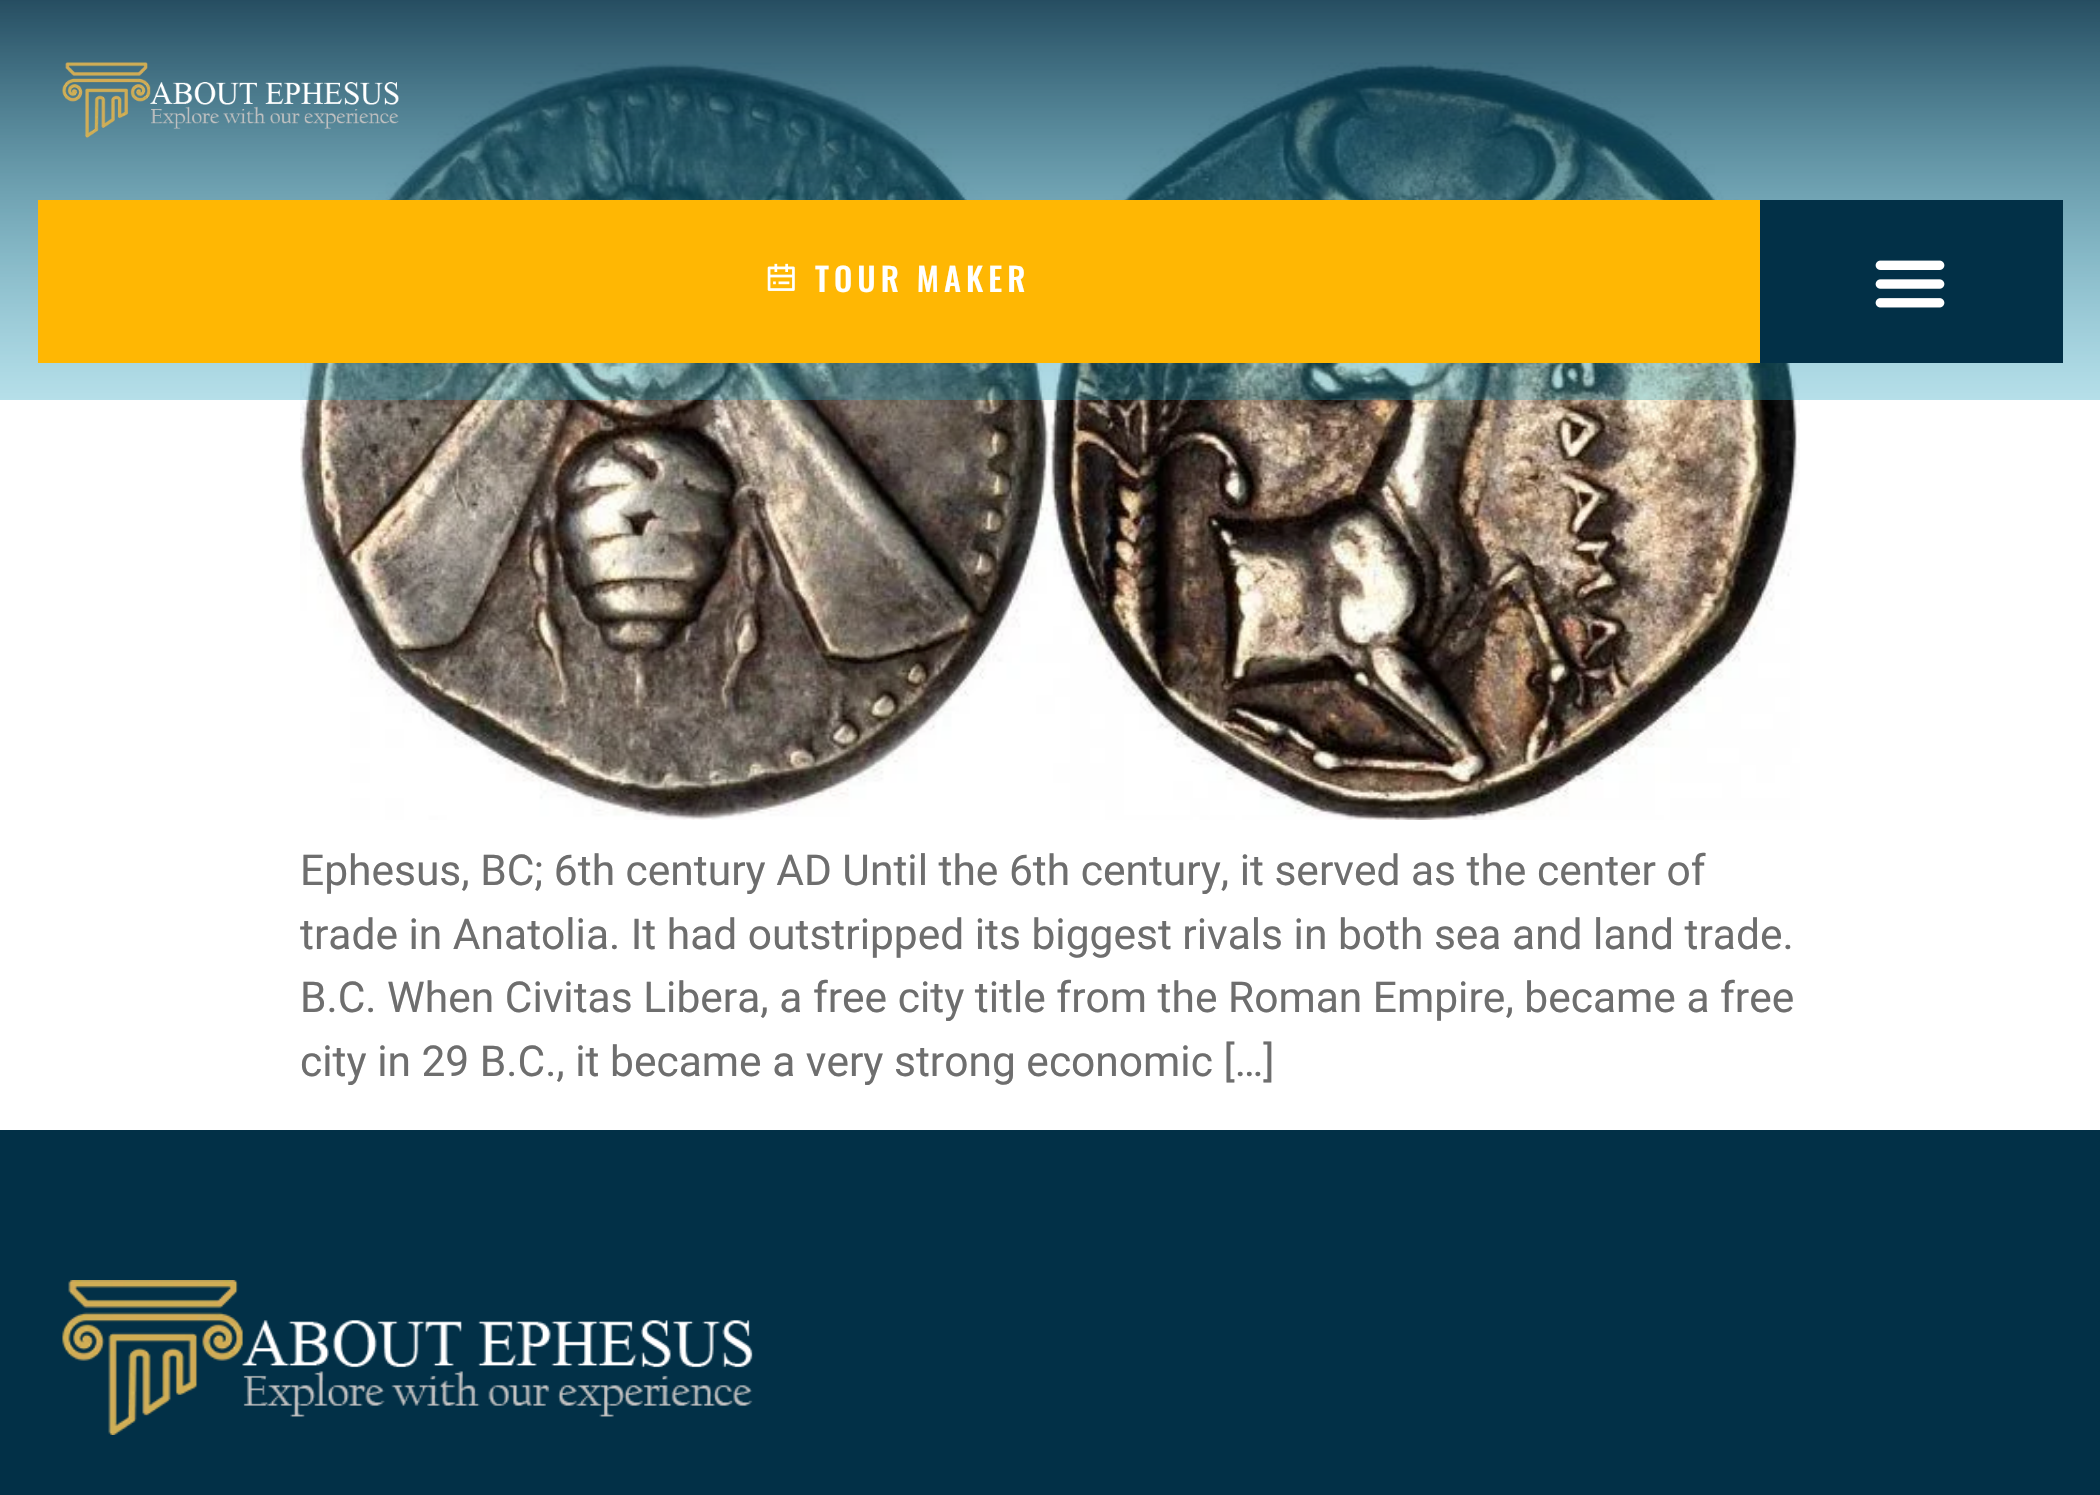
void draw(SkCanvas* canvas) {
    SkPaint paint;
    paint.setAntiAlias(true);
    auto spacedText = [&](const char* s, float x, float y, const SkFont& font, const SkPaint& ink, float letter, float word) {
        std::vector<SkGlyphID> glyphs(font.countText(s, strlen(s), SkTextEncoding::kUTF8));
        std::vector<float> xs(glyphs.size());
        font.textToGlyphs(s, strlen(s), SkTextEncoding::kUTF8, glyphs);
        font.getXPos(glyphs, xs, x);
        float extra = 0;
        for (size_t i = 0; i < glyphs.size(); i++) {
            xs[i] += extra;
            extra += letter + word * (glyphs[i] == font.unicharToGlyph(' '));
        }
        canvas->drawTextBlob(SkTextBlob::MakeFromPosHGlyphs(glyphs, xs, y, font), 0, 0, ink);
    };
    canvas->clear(0xFFFFFFFF);
    canvas->drawImageRect(SkImages::DeferredFromEncodedData(SkData::MakeFromFileName("img4.png")), SkRect::MakeXYWH(300, 62, 1500, 758), SkSamplingOptions());
    {
        const SkColor colors[] = {0xDB023047, 0x54219EBC};
        const float stops[] = {0, 1};
        const SkPoint ends[] = {{1050, 0}, {1050, 400}};
        paint.setShader(SkGradientShader::MakeLinear(ends, colors, stops, 2, SkTileMode::kClamp));
        paint.setAlpha(255);
    }
    canvas->drawRect(SkRect::MakeXYWH(0, 0, 2100, 400), paint);
    canvas->drawImageRect(SkImages::DeferredFromEncodedData(SkData::MakeFromFileName("img1.png")), SkRect::MakeXYWH(62, 62, 337, 76), SkSamplingOptions());
    paint.setShader(nullptr);
    paint.setColor(0xFFFFB703);
    canvas->drawRect(SkRect::MakeXYWH(38, 200, 1722, 163), paint);
    canvas->drawImageRect(SkImages::DeferredFromEncodedData(SkData::MakeFromFileName("img2.png")), SkRect::MakeXYWH(767, 263, 28, 28), SkSamplingOptions());
    SkFont font1(fontMgr->matchFamilyStyle("Oswald", SkFontStyle(500, SkFontStyle::kNormal_Width, SkFontStyle::kUpright_Slant)), 32.5f);
    font1.setSubpixel(true);
    paint.setColor(0xFFFFFFFF);
    spacedText("TOUR MAKER", 815, 292, font1, paint, 5, 0);
    paint.setColor(0xFF023047);
    canvas->drawRect(SkRect::MakeXYWH(1760, 200, 303, 163), paint);
    canvas->drawImageRect(SkImages::DeferredFromEncodedData(SkData::MakeFromFileName("img3.png")), SkRect::MakeXYWH(1875, 260, 70, 48), SkSamplingOptions());
    SkFont font2(fontMgr->matchFamilyStyle("Roboto", SkFontStyle::Normal()), 42.5f);
    font2.setSubpixel(true);
    paint.setColor(0xFF6E6E6E);
    canvas->drawString("Ephesus, BC; 6th century AD Until the 6th century, it served as the center of", 300, 885, font2, paint);
    canvas->drawString("trade in Anatolia. It had outstripped its biggest rivals in both sea and land trade.", 300, 949, font2, paint);
    canvas->drawString("B.C. When Civitas Libera, a free city title from the Roman Empire, became a free", 300, 1012, font2, paint);
    canvas->drawString("city in 29 B.C., it became a very strong economic […]", 300, 1076, font2, paint);
    paint.setColor(0xFF023047);
    canvas->drawRect(SkRect::MakeXYWH(0, 1130, 2100, 365), paint);
    canvas->drawImageRect(SkImages::DeferredFromEncodedData(SkData::MakeFromFileName("img5.png")), SkRect::MakeXYWH(62, 1280, 691, 155), SkSamplingOptions());
}
